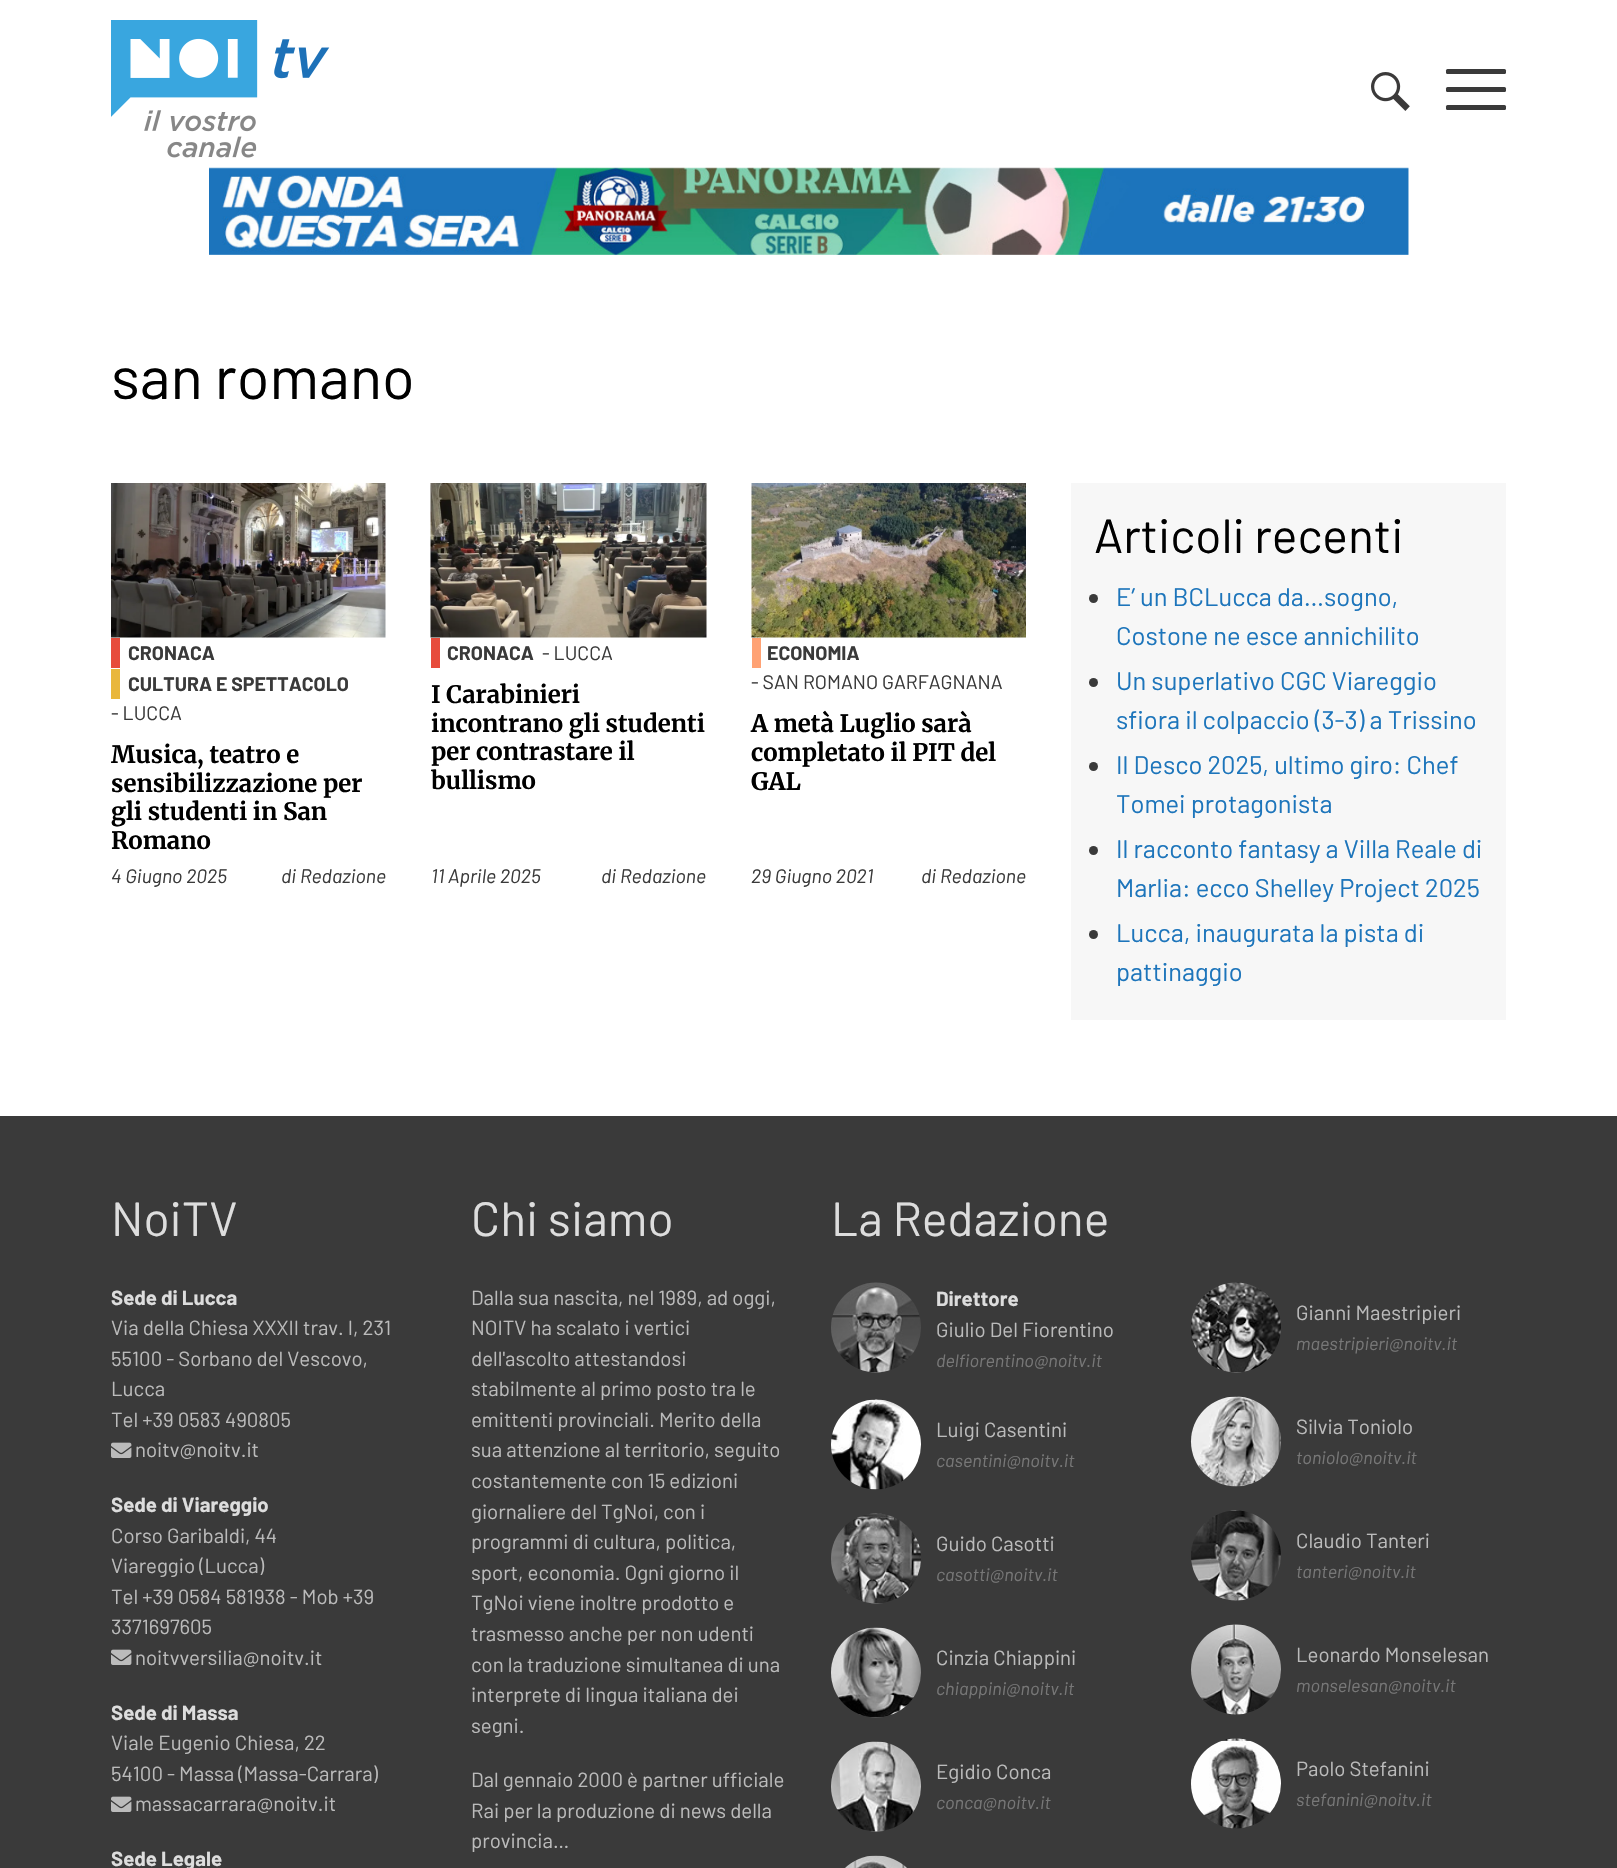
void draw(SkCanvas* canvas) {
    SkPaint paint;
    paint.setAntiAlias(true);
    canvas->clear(0xFFFFFFFF);
    canvas->drawImageRect(SkImages::DeferredFromEncodedData(SkData::MakeFromFileName("img1.png")), SkRect::MakeXYWH(111, 20, 219, 138), SkSamplingOptions());
    canvas->drawImageRect(SkImages::DeferredFromEncodedData(SkData::MakeFromFileName("img2.png")), SkRect::MakeXYWH(1371, 72, 39, 39), SkSamplingOptions());
    paint.setColor(0xFF3A3A3A);
    canvas->drawRoundRect(SkRect::MakeXYWH(1446, 87, 60, 5), 1.5f, 1.5f, paint);
    canvas->drawRoundRect(SkRect::MakeXYWH(1446, 69, 60, 5), 1.5f, 1.5f, paint);
    canvas->drawRoundRect(SkRect::MakeXYWH(1446, 105, 60, 5), 1.5f, 1.5f, paint);
    canvas->drawImageRect(SkImages::DeferredFromEncodedData(SkData::MakeFromFileName("img3.png")), SkRect::MakeXYWH(209, 167, 1200, 88), SkSamplingOptions());
    SkFont font1(fontMgr->matchFamilyStyle("Barlow", SkFontStyle::Normal()), 60);
    font1.setSubpixel(true);
    paint.setColor(0xFF000000);
    canvas->drawString("san romano", 111, 399, font1, paint);
    canvas->drawImageRect(SkImages::DeferredFromEncodedData(SkData::MakeFromFileName("img4.png")), SkRect::MakeXYWH(111, 483, 275, 155), SkSamplingOptions());
    paint.setColor(0xFFE74C3C);
    canvas->drawRect(SkRect::MakeXYWH(111, 638, 9, 30), paint);
    SkFont font2(fontMgr->matchFamilyStyle("Barlow", SkFontStyle::Bold()), 19.5f);
    font2.setSubpixel(true);
    paint.setColor(0xFF3A3A3A);
    canvas->drawString("CRONACA", 128, 660, font2, paint);
    paint.setColor(0xFFE9B73C);
    canvas->drawRect(SkRect::MakeXYWH(111, 669, 9, 30), paint);
    paint.setColor(0xFF3A3A3A);
    canvas->drawString("CULTURA E SPETTACOLO", 128, 691, font2, paint);
    SkFont font3(fontMgr->matchFamilyStyle("Barlow", SkFontStyle::Normal()), 19.5f);
    font3.setSubpixel(true);
    canvas->drawString("- LUCCA", 111, 720, font3, paint);
    SkFont font4(fontMgr->matchFamilyStyle("Merriweather", SkFontStyle(300, SkFontStyle::kNormal_Width, SkFontStyle::kUpright_Slant)), 24);
    font4.setSubpixel(true);
    paint.setColor(0xFF000000);
    canvas->drawString("Musica, teatro e", 111, 763, font4, paint);
    canvas->drawString("sensibilizzazione per", 111, 792, font4, paint);
    canvas->drawString("gli studenti in San", 111, 820, font4, paint);
    canvas->drawString("Romano", 111, 849, font4, paint);
    SkFont font5(fontMgr->matchFamilyStyle("Barlow", SkFontStyle::Italic()), 19.5f);
    font5.setSubpixel(true);
    paint.setColor(0xFF3A3A3A);
    canvas->drawString("4 Giugno 2025", 111, 883, font5, paint);
    canvas->drawString("di Redazione", 281, 883, font5, paint);
    canvas->drawImageRect(SkImages::DeferredFromEncodedData(SkData::MakeFromFileName("img5.png")), SkRect::MakeXYWH(430, 483, 277, 155), SkSamplingOptions());
    paint.setColor(0xFFE74C3C);
    canvas->drawRect(SkRect::MakeXYWH(431, 638, 9, 30), paint);
    paint.setColor(0xFF3A3A3A);
    canvas->drawString("CRONACA", 447, 660, font2, paint);
    canvas->drawString("- LUCCA", 542, 660, font3, paint);
    paint.setColor(0xFF000000);
    canvas->drawString("I Carabinieri", 431, 703, font4, paint);
    canvas->drawString("incontrano gli studenti", 431, 732, font4, paint);
    canvas->drawString("per contrastare il", 431, 760, font4, paint);
    canvas->drawString("bullismo", 431, 789, font4, paint);
    paint.setColor(0xFF3A3A3A);
    canvas->drawString("11 Aprile 2025", 431, 883, font5, paint);
    canvas->drawString("di Redazione", 601, 883, font5, paint);
    canvas->drawImageRect(SkImages::DeferredFromEncodedData(SkData::MakeFromFileName("img6.png")), SkRect::MakeXYWH(751, 483, 275, 155), SkSamplingOptions());
    paint.setColor(0xFFFFA274);
    canvas->drawRect(SkRect::MakeXYWH(752, 638, 9, 30), paint);
    paint.setColor(0xFF3A3A3A);
    canvas->drawString("ECONOMIA", 767, 660, font2, paint);
    canvas->drawString("- SAN ROMANO GARFAGNANA", 751, 689, font3, paint);
    paint.setColor(0xFF000000);
    canvas->drawString("A metà Luglio sarà", 751, 732, font4, paint);
    canvas->drawString("completato il PIT del", 751, 761, font4, paint);
    canvas->drawString("GAL", 751, 790, font4, paint);
    paint.setColor(0xFF3A3A3A);
    canvas->drawString("29 Giugno 2021", 751, 883, font5, paint);
    canvas->drawString("di Redazione", 921, 883, font5, paint);
    paint.setColor(0xFFF7F7F7);
    canvas->drawRect(SkRect::MakeXYWH(1071, 483, 435, 537), paint);
    SkFont font6(fontMgr->matchFamilyStyle("Barlow", SkFontStyle::Normal()), 48);
    font6.setSubpixel(true);
    paint.setColor(0xFF000000);
    canvas->drawString("Articoli recenti", 1094, 553, font6, paint);
    paint.setColor(0xFF3A3A3A);
    canvas->drawCircle(1093.5f, 598.5f, 4.5f, paint);
    SkFont font7(fontMgr->matchFamilyStyle("Barlow", SkFontStyle::Normal()), 25.5f);
    font7.setSubpixel(true);
    paint.setColor(0xFF1D75BB);
    canvas->drawString("E’ un BCLucca da…sogno,", 1116, 606, font7, paint);
    canvas->drawString("Costone ne esce annichilito", 1116, 645, font7, paint);
    paint.setColor(0xFF3A3A3A);
    canvas->drawCircle(1093.5f, 682.5f, 4.5f, paint);
    paint.setColor(0xFF1D75BB);
    canvas->drawString("Un superlativo CGC Viareggio", 1116, 690, font7, paint);
    canvas->drawString("sfiora il colpaccio (3-3) a Trissino", 1116, 729, font7, paint);
    paint.setColor(0xFF3A3A3A);
    canvas->drawCircle(1093.5f, 766.5f, 4.5f, paint);
    paint.setColor(0xFF1D75BB);
    canvas->drawString("Il Desco 2025, ultimo giro: Chef", 1116, 774, font7, paint);
    canvas->drawString("Tomei protagonista", 1116, 813, font7, paint);
    paint.setColor(0xFF3A3A3A);
    canvas->drawCircle(1093.5f, 850.5f, 4.5f, paint);
    paint.setColor(0xFF1D75BB);
    canvas->drawString("Il racconto fantasy a Villa Reale di", 1116, 858, font7, paint);
    canvas->drawString("Marlia: ecco Shelley Project 2025", 1116, 897, font7, paint);
    paint.setColor(0xFF3A3A3A);
    canvas->drawCircle(1093.5f, 934.5f, 4.5f, paint);
    paint.setColor(0xFF1D75BB);
    canvas->drawString("Lucca, inaugurata la pista di", 1116, 942, font7, paint);
    canvas->drawString("pattinaggio", 1116, 981, font7, paint);
    paint.setColor(0xFF3A3A3A);
    canvas->drawRect(SkRect::MakeXYWH(0, 1116, 1617, 752), paint);
    paint.setColor(0xFFDDDDDD);
    canvas->drawString("NoiTV", 111, 1236, font6, paint);
    SkFont font8(fontMgr->matchFamilyStyle("Barlow", SkFontStyle::Bold()), 20.4f);
    font8.setSubpixel(true);
    canvas->drawString("Sede di Lucca", 111, 1305, font8, paint);
    SkFont font9(fontMgr->matchFamilyStyle("Barlow", SkFontStyle::Normal()), 20.4f);
    font9.setSubpixel(true);
    paint.setColor(0xFFBBBBBB);
    canvas->drawString("Via della Chiesa XXXII trav. I, 231", 111, 1335, font9, paint);
    canvas->drawString("55100 - Sorbano del Vescovo,", 111, 1366, font9, paint);
    canvas->drawString("Lucca", 111, 1396, font9, paint);
    canvas->drawString("Tel +39 0583 490805", 111, 1427, font9, paint);
    canvas->drawImageRect(SkImages::DeferredFromEncodedData(SkData::MakeFromFileName("img7.png")), SkRect::MakeXYWH(111, 1442, 21, 16), SkSamplingOptions());
    canvas->drawString("noitv@noitv.it", 135, 1457, font9, paint);
    paint.setColor(0xFFDDDDDD);
    canvas->drawString("Sede di Viareggio", 111, 1512, font8, paint);
    paint.setColor(0xFFBBBBBB);
    canvas->drawString("Corso Garibaldi, 44", 111, 1543, font9, paint);
    canvas->drawString("Viareggio (Lucca)", 111, 1573, font9, paint);
    canvas->drawString("Tel +39 0584 581938 - Mob +39", 111, 1604, font9, paint);
    canvas->drawString("3371697605", 111, 1634, font9, paint);
    canvas->drawImageRect(SkImages::DeferredFromEncodedData(SkData::MakeFromFileName("img7.png")), SkRect::MakeXYWH(111, 1649, 21, 16), SkSamplingOptions());
    canvas->drawString("noitvversilia@noitv.it", 135, 1665, font9, paint);
    paint.setColor(0xFFDDDDDD);
    canvas->drawString("Sede di Massa", 111, 1720, font8, paint);
    paint.setColor(0xFFBBBBBB);
    canvas->drawString("Viale Eugenio Chiesa, 22", 111, 1750, font9, paint);
    canvas->drawString("54100 - Massa (Massa-Carrara)", 111, 1781, font9, paint);
    canvas->drawImageRect(SkImages::DeferredFromEncodedData(SkData::MakeFromFileName("img7.png")), SkRect::MakeXYWH(111, 1796, 21, 16), SkSamplingOptions());
    canvas->drawString("massacarrara@noitv.it", 135, 1811, font9, paint);
    paint.setColor(0xFFDDDDDD);
    canvas->drawString("Sede Legale", 111, 1866, font8, paint);
    canvas->drawString("Chi siamo", 471, 1236, font6, paint);
    paint.setColor(0xFFBBBBBB);
    canvas->drawString("Dalla sua nascita, nel 1989, ad oggi,", 471, 1305, font9, paint);
    canvas->drawString("NOITV ha scalato i vertici", 471, 1335, font9, paint);
    canvas->drawString("dell'ascolto attestandosi", 471, 1366, font9, paint);
    canvas->drawString("stabilmente al primo posto tra le", 471, 1396, font9, paint);
    canvas->drawString("emittenti provinciali. Merito della", 471, 1427, font9, paint);
    canvas->drawString("sua attenzione al territorio, seguito", 471, 1457, font9, paint);
    canvas->drawString("costantemente con 15 edizioni", 471, 1488, font9, paint);
    canvas->drawString("giornaliere del TgNoi, con i", 471, 1519, font9, paint);
    canvas->drawString("programmi di cultura, politica,", 471, 1549, font9, paint);
    canvas->drawString("sport, economia. Ogni giorno il", 471, 1580, font9, paint);
    canvas->drawString("TgNoi viene inoltre prodotto e", 471, 1610, font9, paint);
    canvas->drawString("trasmesso anche per non udenti", 471, 1641, font9, paint);
    canvas->drawString("con la traduzione simultanea di una", 471, 1672, font9, paint);
    canvas->drawString("interprete di lingua italiana dei", 471, 1702, font9, paint);
    canvas->drawString("segni.", 471, 1733, font9, paint);
    canvas->drawString("Dal gennaio 2000 è partner ufficiale", 471, 1787, font9, paint);
    canvas->drawString("Rai per la produzione di news della", 471, 1818, font9, paint);
    canvas->drawString("provincia…", 471, 1848, font9, paint);
    paint.setColor(0xFFDDDDDD);
    canvas->drawString("La Redazione", 831, 1236, font6, paint);
    canvas->drawImageRect(SkImages::DeferredFromEncodedData(SkData::MakeFromFileName("img8.png")), SkRect::MakeXYWH(831, 1282, 90, 91), SkSamplingOptions());
    canvas->drawString("Direttore", 936, 1306, font8, paint);
    paint.setColor(0xFFBBBBBB);
    canvas->drawString("Giulio Del Fiorentino", 936, 1337, font9, paint);
    SkFont font10(fontMgr->matchFamilyStyle("Barlow", SkFontStyle::Italic()), 18);
    font10.setSubpixel(true);
    paint.setColor(0xFF777777);
    canvas->drawString("delfiorentino@noitv.it", 936, 1367, font10, paint);
    canvas->drawImageRect(SkImages::DeferredFromEncodedData(SkData::MakeFromFileName("img9.png")), SkRect::MakeXYWH(831, 1399, 90, 91), SkSamplingOptions());
    paint.setColor(0xFFBBBBBB);
    canvas->drawString("Luigi Casentini", 936, 1437, font9, paint);
    paint.setColor(0xFF777777);
    canvas->drawString("casentini@noitv.it", 936, 1467, font10, paint);
    canvas->drawImageRect(SkImages::DeferredFromEncodedData(SkData::MakeFromFileName("img10.png")), SkRect::MakeXYWH(831, 1513, 90, 91), SkSamplingOptions());
    paint.setColor(0xFFBBBBBB);
    canvas->drawString("Guido Casotti", 936, 1551, font9, paint);
    paint.setColor(0xFF777777);
    canvas->drawString("casotti@noitv.it", 936, 1581, font10, paint);
    canvas->drawImageRect(SkImages::DeferredFromEncodedData(SkData::MakeFromFileName("img11.png")), SkRect::MakeXYWH(831, 1627, 90, 91), SkSamplingOptions());
    paint.setColor(0xFFBBBBBB);
    canvas->drawString("Cinzia Chiappini", 936, 1665, font9, paint);
    paint.setColor(0xFF777777);
    canvas->drawString("chiappini@noitv.it", 936, 1695, font10, paint);
    canvas->drawImageRect(SkImages::DeferredFromEncodedData(SkData::MakeFromFileName("img12.png")), SkRect::MakeXYWH(831, 1741, 90, 91), SkSamplingOptions());
    paint.setColor(0xFFBBBBBB);
    canvas->drawString("Egidio Conca", 936, 1779, font9, paint);
    paint.setColor(0xFF777777);
    canvas->drawString("conca@noitv.it", 936, 1809, font10, paint);
    canvas->drawImageRect(SkImages::DeferredFromEncodedData(SkData::MakeFromFileName("img13.png")), SkRect::MakeXYWH(845, 1855, 62, 13), SkSamplingOptions());
    canvas->drawImageRect(SkImages::DeferredFromEncodedData(SkData::MakeFromFileName("img14.png")), SkRect::MakeXYWH(1191, 1282, 90, 91), SkSamplingOptions());
    paint.setColor(0xFFBBBBBB);
    canvas->drawString("Gianni Maestripieri", 1296, 1320, font9, paint);
    paint.setColor(0xFF777777);
    canvas->drawString("maestripieri@noitv.it", 1296, 1350, font10, paint);
    canvas->drawImageRect(SkImages::DeferredFromEncodedData(SkData::MakeFromFileName("img15.png")), SkRect::MakeXYWH(1190, 1396, 91, 91), SkSamplingOptions());
    paint.setColor(0xFFBBBBBB);
    canvas->drawString("Silvia Toniolo", 1296, 1434, font9, paint);
    paint.setColor(0xFF777777);
    canvas->drawString("toniolo@noitv.it", 1296, 1464, font10, paint);
    canvas->drawImageRect(SkImages::DeferredFromEncodedData(SkData::MakeFromFileName("img16.png")), SkRect::MakeXYWH(1191, 1510, 90, 91), SkSamplingOptions());
    paint.setColor(0xFFBBBBBB);
    canvas->drawString("Claudio Tanteri", 1296, 1548, font9, paint);
    paint.setColor(0xFF777777);
    canvas->drawString("tanteri@noitv.it", 1296, 1578, font10, paint);
    canvas->drawImageRect(SkImages::DeferredFromEncodedData(SkData::MakeFromFileName("img17.png")), SkRect::MakeXYWH(1190, 1624, 91, 91), SkSamplingOptions());
    paint.setColor(0xFFBBBBBB);
    canvas->drawString("Leonardo Monselesan", 1296, 1662, font9, paint);
    paint.setColor(0xFF777777);
    canvas->drawString("monselesan@noitv.it", 1296, 1692, font10, paint);
    canvas->drawImageRect(SkImages::DeferredFromEncodedData(SkData::MakeFromFileName("img18.png")), SkRect::MakeXYWH(1191, 1738, 90, 91), SkSamplingOptions());
    paint.setColor(0xFFBBBBBB);
    canvas->drawString("Paolo Stefanini", 1296, 1776, font9, paint);
    paint.setColor(0xFF777777);
    canvas->drawString("stefanini@noitv.it", 1296, 1806, font10, paint);
}
